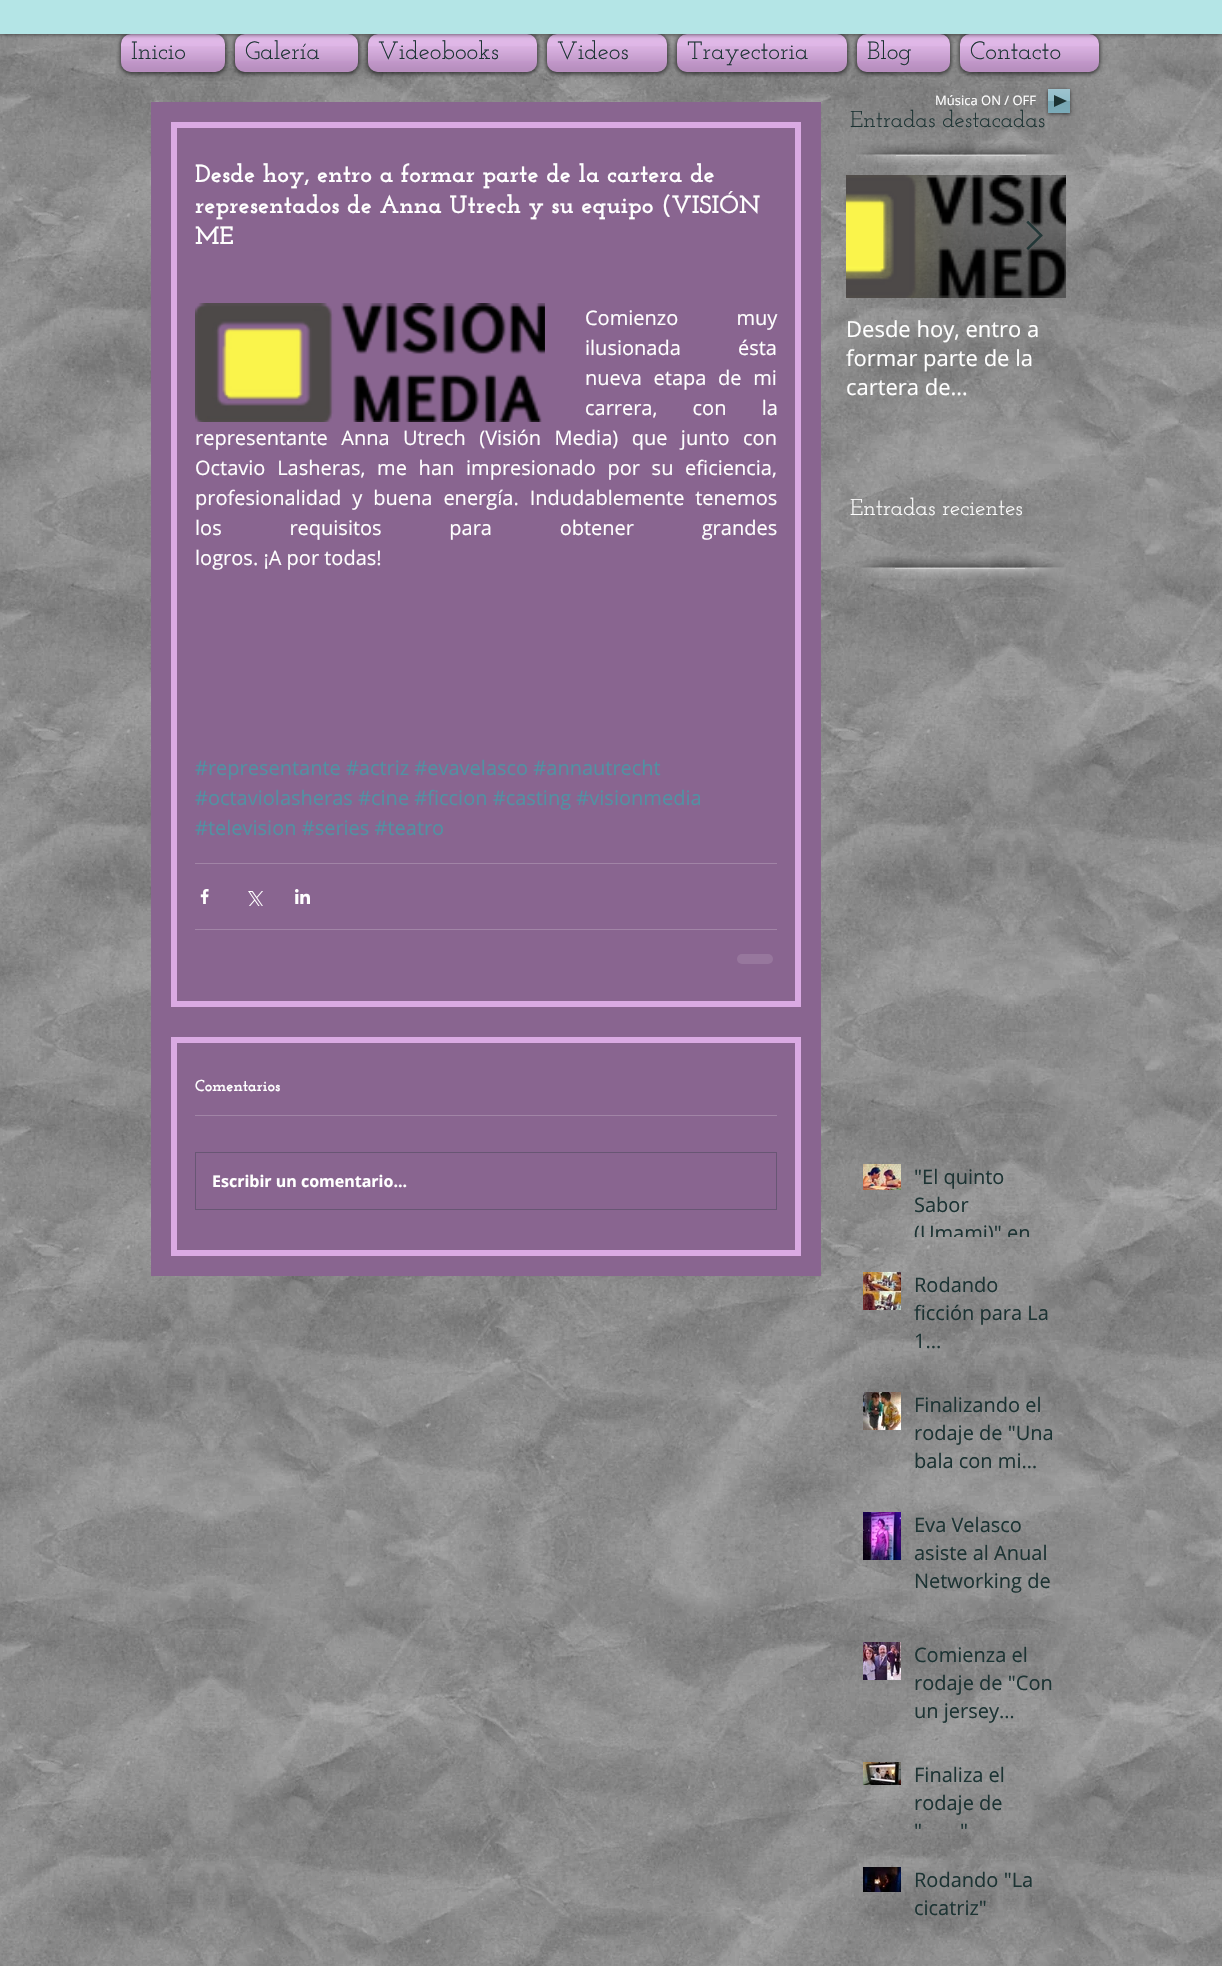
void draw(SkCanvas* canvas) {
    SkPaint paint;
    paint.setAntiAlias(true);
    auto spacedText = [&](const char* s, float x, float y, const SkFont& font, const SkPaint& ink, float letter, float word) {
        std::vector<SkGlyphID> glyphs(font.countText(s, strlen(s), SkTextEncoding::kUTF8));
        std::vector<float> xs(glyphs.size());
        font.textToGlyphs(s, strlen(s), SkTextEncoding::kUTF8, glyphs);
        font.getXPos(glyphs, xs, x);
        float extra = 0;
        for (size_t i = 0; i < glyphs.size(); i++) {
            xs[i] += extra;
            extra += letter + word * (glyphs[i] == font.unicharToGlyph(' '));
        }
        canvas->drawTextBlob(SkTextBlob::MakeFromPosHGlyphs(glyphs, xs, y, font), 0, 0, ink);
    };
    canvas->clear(0xFFFFFFFF);
    canvas->drawImageRect(SkImages::DeferredFromEncodedData(SkData::MakeFromFileName("img1.png")), SkRect::MakeXYWH(0, 34, 1222, 1932), SkSamplingOptions());
    paint.setColor(0x99000000);
    paint.setMaskFilter(SkMaskFilter::MakeBlur(kNormal_SkBlurStyle, 2));
    canvas->drawRoundRect(SkRect::MakeXYWH(120, 34, 106, 40), 11, 11, paint);
    paint.setMaskFilter(nullptr);
    paint.setColor(0xFFDAAAE3);
    canvas->drawRoundRect(SkRect::MakeXYWH(121, 34, 104, 38), 10, 10, paint);
    canvas->drawImageRect(SkImages::DeferredFromEncodedData(SkData::MakeFromFileName("img2.png")), SkRect::MakeXYWH(121, 34, 104, 27), SkSamplingOptions());
    paint.setColor(0x99000000);
    paint.setMaskFilter(SkMaskFilter::MakeBlur(kNormal_SkBlurStyle, 2));
    canvas->drawRoundRect(SkRect::MakeXYWH(234, 34, 125, 40), 11, 11, paint);
    paint.setMaskFilter(nullptr);
    paint.setColor(0xFFDAAAE3);
    canvas->drawRoundRect(SkRect::MakeXYWH(235, 34, 123, 38), 10, 10, paint);
    canvas->drawImageRect(SkImages::DeferredFromEncodedData(SkData::MakeFromFileName("img4.png")), SkRect::MakeXYWH(235, 34, 123, 27), SkSamplingOptions());
    paint.setColor(0x99000000);
    paint.setMaskFilter(SkMaskFilter::MakeBlur(kNormal_SkBlurStyle, 2));
    canvas->drawRoundRect(SkRect::MakeXYWH(367, 34, 171, 40), 11, 11, paint);
    paint.setMaskFilter(nullptr);
    paint.setColor(0xFFDAAAE3);
    canvas->drawRoundRect(SkRect::MakeXYWH(368, 34, 169, 38), 10, 10, paint);
    canvas->drawImageRect(SkImages::DeferredFromEncodedData(SkData::MakeFromFileName("img6.png")), SkRect::MakeXYWH(368, 34, 169, 27), SkSamplingOptions());
    paint.setColor(0x99000000);
    paint.setMaskFilter(SkMaskFilter::MakeBlur(kNormal_SkBlurStyle, 2));
    canvas->drawRoundRect(SkRect::MakeXYWH(546, 34, 122, 40), 11, 11, paint);
    paint.setMaskFilter(nullptr);
    paint.setColor(0xFFDAAAE3);
    canvas->drawRoundRect(SkRect::MakeXYWH(547, 34, 120, 38), 10, 10, paint);
    canvas->drawImageRect(SkImages::DeferredFromEncodedData(SkData::MakeFromFileName("img8.png")), SkRect::MakeXYWH(547, 34, 120, 27), SkSamplingOptions());
    paint.setColor(0x99000000);
    paint.setMaskFilter(SkMaskFilter::MakeBlur(kNormal_SkBlurStyle, 2));
    canvas->drawRoundRect(SkRect::MakeXYWH(676, 34, 172, 40), 11, 11, paint);
    paint.setMaskFilter(nullptr);
    paint.setColor(0xFFDAAAE3);
    canvas->drawRoundRect(SkRect::MakeXYWH(677, 34, 170, 38), 10, 10, paint);
    canvas->drawImageRect(SkImages::DeferredFromEncodedData(SkData::MakeFromFileName("img10.png")), SkRect::MakeXYWH(677, 34, 170, 27), SkSamplingOptions());
    paint.setColor(0x99000000);
    paint.setMaskFilter(SkMaskFilter::MakeBlur(kNormal_SkBlurStyle, 2));
    canvas->drawRoundRect(SkRect::MakeXYWH(856, 34, 95, 40), 11, 11, paint);
    paint.setMaskFilter(nullptr);
    paint.setColor(0xFFDAAAE3);
    canvas->drawRoundRect(SkRect::MakeXYWH(857, 34, 93, 38), 10, 10, paint);
    canvas->drawImageRect(SkImages::DeferredFromEncodedData(SkData::MakeFromFileName("img12.png")), SkRect::MakeXYWH(857, 34, 93, 27), SkSamplingOptions());
    paint.setColor(0x99000000);
    paint.setMaskFilter(SkMaskFilter::MakeBlur(kNormal_SkBlurStyle, 2));
    canvas->drawRoundRect(SkRect::MakeXYWH(959, 34, 141, 40), 11, 11, paint);
    paint.setMaskFilter(nullptr);
    paint.setColor(0xFFDAAAE3);
    canvas->drawRoundRect(SkRect::MakeXYWH(960, 34, 139, 38), 10, 10, paint);
    canvas->drawImageRect(SkImages::DeferredFromEncodedData(SkData::MakeFromFileName("img14.png")), SkRect::MakeXYWH(960, 34, 139, 27), SkSamplingOptions());
    paint.setColor(0xB3000000);
    paint.setMaskFilter(SkMaskFilter::MakeBlur(kNormal_SkBlurStyle, 2.5f));
    canvas->drawRect(SkRect::MakeXYWH(0, 0, 1222, 34), paint);
    paint.setMaskFilter(nullptr);
    paint.setColor(0xFFB4E5E6);
    canvas->drawRect(SkRect::MakeXYWH(0, 0, 1222, 34), paint);
    canvas->drawImageRect(SkImages::DeferredFromEncodedData(SkData::MakeFromFileName("img3.png")), SkRect::MakeXYWH(121, 46, 104, 26), SkSamplingOptions());
    SkFont font1(fontMgr->matchFamilyStyle("Josefin Slab", SkFontStyle::Normal()), 25);
    font1.setSubpixel(true);
    paint.setColor(0xFF1C3333);
    canvas->drawString("Inicio", 131, 59, font1, paint);
    canvas->drawImageRect(SkImages::DeferredFromEncodedData(SkData::MakeFromFileName("img5.png")), SkRect::MakeXYWH(235, 46, 123, 26), SkSamplingOptions());
    canvas->drawString("Galería", 245, 59, font1, paint);
    canvas->drawImageRect(SkImages::DeferredFromEncodedData(SkData::MakeFromFileName("img7.png")), SkRect::MakeXYWH(368, 46, 169, 26), SkSamplingOptions());
    canvas->drawString("Videobooks", 378, 59, font1, paint);
    canvas->drawImageRect(SkImages::DeferredFromEncodedData(SkData::MakeFromFileName("img9.png")), SkRect::MakeXYWH(547, 46, 120, 26), SkSamplingOptions());
    canvas->drawString("Videos", 557, 59, font1, paint);
    canvas->drawImageRect(SkImages::DeferredFromEncodedData(SkData::MakeFromFileName("img11.png")), SkRect::MakeXYWH(677, 46, 170, 26), SkSamplingOptions());
    canvas->drawString("Trayectoria", 687, 59, font1, paint);
    canvas->drawImageRect(SkImages::DeferredFromEncodedData(SkData::MakeFromFileName("img13.png")), SkRect::MakeXYWH(857, 46, 93, 26), SkSamplingOptions());
    canvas->drawString("Blog", 867, 59, font1, paint);
    canvas->drawImageRect(SkImages::DeferredFromEncodedData(SkData::MakeFromFileName("img15.png")), SkRect::MakeXYWH(960, 46, 139, 26), SkSamplingOptions());
    canvas->drawString("Contacto", 970, 59, font1, paint);
    SkFont font2(fontMgr->matchFamilyStyle("Open Sans", SkFontStyle::Normal()), 13);
    font2.setSubpixel(true);
    paint.setColor(0xFFFFFFFF);
    canvas->drawString("Música ON / OFF", 935, 105, font2, paint);
    paint.setColor(0x99000000);
    paint.setMaskFilter(SkMaskFilter::MakeBlur(kNormal_SkBlurStyle, 2));
    canvas->drawRect(SkRect::MakeXYWH(1048, 90, 22, 24), paint);
    paint.setMaskFilter(nullptr);
    paint.setColor(0xFF81B3C1);
    canvas->drawRect(SkRect::MakeXYWH(1048, 89, 22, 24), paint);
    canvas->drawImageRect(SkImages::DeferredFromEncodedData(SkData::MakeFromFileName("img16.png")), SkRect::MakeXYWH(1048, 89, 22, 24), SkSamplingOptions());
    paint.setColor(0xFF1C3333);
    canvas->drawPath(SkPathBuilder().moveTo(1054, 107).lineTo(1054, 95).lineTo(1067, 101).close().detach(), paint);
    SkFont font3(fontMgr->matchFamilyStyle("Josefin Slab", SkFontStyle::Normal()), 23);
    font3.setSubpixel(true);
    canvas->drawString("Entradas destacadas", 850, 127, font3, paint);
    canvas->drawImageRect(SkImages::DeferredFromEncodedData(SkData::MakeFromFileName("img17.png")), SkRect::MakeXYWH(896, 143, 130, 22), SkSamplingOptions());
    canvas->drawImageRect(SkImages::DeferredFromEncodedData(SkData::MakeFromFileName("img18.png")), SkRect::MakeXYWH(856, 143, 40, 22), SkSamplingOptions());
    canvas->drawImageRect(SkImages::DeferredFromEncodedData(SkData::MakeFromFileName("img19.png")), SkRect::MakeXYWH(1026, 143, 40, 22), SkSamplingOptions());
    paint.setColor(0xFF896590);
    canvas->drawRect(SkRect::MakeXYWH(151, 102, 670, 1174), paint);
    paint.setStyle(SkPaint::kStroke_Style);
    paint.setStrokeWidth(6);
    paint.setColor(0xFFDAAAE3);
    canvas->drawRect(SkRect::MakeXYWH(174, 125, 624, 879), paint);
    SkFont font4(fontMgr->matchFamilyStyle("Josefin Slab", SkFontStyle::Bold()), 25);
    font4.setSubpixel(true);
    paint.setStyle(SkPaint::kFill_Style);
    paint.setColor(0xFFFFFFFF);
    canvas->drawString("Desde hoy, entro a formar parte de la cartera de", 195, 182, font4, paint);
    canvas->drawString("representados de Anna Utrech y su equipo (VISIÓN", 195, 213, font4, paint);
    canvas->drawString("ME", 195, 244, font4, paint);
    canvas->drawImageRect(SkImages::DeferredFromEncodedData(SkData::MakeFromFileName("img20.png")), SkRect::MakeXYWH(195, 303, 350, 119), SkSamplingOptions());
    SkFont font5(fontMgr->matchFamilyStyle("Open Sans", SkFontStyle::Normal()), 20);
    font5.setSubpixel(true);
    spacedText("Comienzo muy", 585, 325, font5, paint, 0, 53);
    spacedText("ilusionada ésta", 585, 355, font5, paint, 0, 52);
    spacedText("nueva etapa de mi", 585, 385, font5, paint, 0, 6.5f);
    spacedText("carrera, con la", 585, 415, font5, paint, 0, 30);
    spacedText("representante Anna Utrech (Visión Media) que junto con", 195, 445, font5, paint, 0, 8.25f);
    spacedText("Octavio Lasheras, me han impresionado por su eficiencia,", 195, 475, font5, paint, 0, 6.5f);
    spacedText("profesionalidad y buena energía. Indudablemente tenemos", 195, 505, font5, paint, 0, 5.75f);
    spacedText("los requisitos para obtener grandes", 195, 535, font5, paint, 0, 62.5f);
    canvas->drawString("logros. ¡A por todas!", 195, 565, font5, paint);
    paint.setColor(0xFF5191A3);
    canvas->drawString("#representante #actriz #evavelasco #annautrecht", 195, 775, font5, paint);
    canvas->drawString("#octaviolasheras #cine #ficcion #casting #visionmedia", 195, 805, font5, paint);
    canvas->drawString("#television #series #teatro", 195, 835, font5, paint);
    paint.setColor(0xFFA184A6);
    canvas->drawRect(SkRect::MakeXYWH(195, 863, 582, 1), paint);
    canvas->drawImageRect(SkImages::DeferredFromEncodedData(SkData::MakeFromFileName("img21.png")), SkRect::MakeXYWH(200, 889, 9, 15), SkSamplingOptions());
    canvas->drawImageRect(SkImages::DeferredFromEncodedData(SkData::MakeFromFileName("img22.png")), SkRect::MakeXYWH(248, 891, 15, 15), SkSamplingOptions());
    canvas->drawImageRect(SkImages::DeferredFromEncodedData(SkData::MakeFromFileName("img23.png")), SkRect::MakeXYWH(295, 889, 15, 15), SkSamplingOptions());
    canvas->drawRect(SkRect::MakeXYWH(195, 929, 582, 1), paint);
    paint.setColor(0xFF97779D);
    canvas->drawRoundRect(SkRect::MakeXYWH(737, 954, 36, 10), 5, 5, paint);
    paint.setStyle(SkPaint::kStroke_Style);
    paint.setColor(0xFFDAAAE3);
    canvas->drawRect(SkRect::MakeXYWH(174, 1040, 624, 213), paint);
    SkFont font6(fontMgr->matchFamilyStyle("Josefin Slab", SkFontStyle::Bold()), 16);
    font6.setSubpixel(true);
    paint.setStyle(SkPaint::kFill_Style);
    paint.setColor(0xFFFFFFFF);
    canvas->drawString("Comentarios", 195, 1091, font6, paint);
    paint.setColor(0xFFA184A6);
    canvas->drawRect(SkRect::MakeXYWH(195, 1115, 582, 1), paint);
    paint.setStyle(SkPaint::kStroke_Style);
    paint.setStrokeWidth(1);
    paint.setColor(0xFF685674);
    canvas->drawRect(SkRect::MakeXYWH(195.5f, 1152.5f, 581, 57), paint);
    SkFont font7(fontMgr->matchFamilyStyle("Open Sans", SkFontStyle::Bold()), 16);
    font7.setSubpixel(true);
    paint.setStyle(SkPaint::kFill_Style);
    paint.setColor(0xFFFFFFFF);
    canvas->drawString("Escribir un comentario...", 212, 1187, font7, paint);
    canvas->drawImageRect(SkImages::DeferredFromEncodedData(SkData::MakeFromFileName("img25.png")), SkRect::MakeXYWH(846, 175, 220, 123), SkSamplingOptions());
    canvas->drawImageRect(SkImages::DeferredFromEncodedData(SkData::MakeFromFileName("img26.png")), SkRect::MakeXYWH(846, 175, 220, 123), SkSamplingOptions());
    canvas->drawImageRect(SkImages::DeferredFromEncodedData(SkData::MakeFromFileName("img24.png")), SkRect::MakeXYWH(1026, 221, 17, 29), SkSamplingOptions());
    SkFont font8(fontMgr->matchFamilyStyle("Open Sans", SkFontStyle::Normal()), 22);
    font8.setSubpixel(true);
    canvas->drawString("Desde hoy, entro a", 846, 337, font8, paint);
    canvas->drawString("formar parte de la", 846, 366, font8, paint);
    canvas->drawString("cartera de…", 846, 395, font8, paint);
    canvas->drawString("Entradas recientes", 850, 515, font3, paint);
    canvas->drawImageRect(SkImages::DeferredFromEncodedData(SkData::MakeFromFileName("img27.png")), SkRect::MakeXYWH(895, 556, 130, 23), SkSamplingOptions());
    canvas->drawImageRect(SkImages::DeferredFromEncodedData(SkData::MakeFromFileName("img28.png")), SkRect::MakeXYWH(855, 556, 40, 22), SkSamplingOptions());
    canvas->drawImageRect(SkImages::DeferredFromEncodedData(SkData::MakeFromFileName("img29.png")), SkRect::MakeXYWH(1025, 556, 41, 22), SkSamplingOptions());
    canvas->drawImageRect(SkImages::DeferredFromEncodedData(SkData::MakeFromFileName("img30.png")), SkRect::MakeXYWH(863, 1164, 38, 26), SkSamplingOptions());
    paint.setColor(0xFF1C3333);
    canvas->drawString("\"El quinto", 914, 1184, font5, paint);
    canvas->drawString("Sabor", 914, 1212, font5, paint);
    canvas->save();
    canvas->clipRect(SkRect::MakeXYWH(914, 1163, 144, 74));
    canvas->drawString("(Umami)\" en", 914, 1240, font5, paint);
    canvas->restore();
    canvas->drawImageRect(SkImages::DeferredFromEncodedData(SkData::MakeFromFileName("img31.png")), SkRect::MakeXYWH(863, 1272, 38, 38), SkSamplingOptions());
    canvas->drawString("Rodando", 914, 1292, font5, paint);
    canvas->drawString("ficción para La", 914, 1320, font5, paint);
    canvas->drawString("1...", 914, 1348, font5, paint);
    canvas->drawImageRect(SkImages::DeferredFromEncodedData(SkData::MakeFromFileName("img32.png")), SkRect::MakeXYWH(863, 1392, 38, 38), SkSamplingOptions());
    canvas->drawString("Finalizando el", 914, 1412, font5, paint);
    canvas->drawString("rodaje de \"Una", 914, 1440, font5, paint);
    canvas->drawString("bala con mi…", 914, 1468, font5, paint);
    canvas->drawImageRect(SkImages::DeferredFromEncodedData(SkData::MakeFromFileName("img33.png")), SkRect::MakeXYWH(863, 1512, 38, 48), SkSamplingOptions());
    canvas->drawString("Eva Velasco", 914, 1532, font5, paint);
    canvas->drawString("asiste al Anual", 914, 1560, font5, paint);
    canvas->drawString("Networking de", 914, 1588, font5, paint);
    canvas->drawImageRect(SkImages::DeferredFromEncodedData(SkData::MakeFromFileName("img34.png")), SkRect::MakeXYWH(863, 1642, 38, 38), SkSamplingOptions());
    canvas->drawString("Comienza el", 914, 1662, font5, paint);
    canvas->drawString("rodaje de \"Con", 914, 1690, font5, paint);
    canvas->drawString("un jersey…", 914, 1718, font5, paint);
    canvas->drawImageRect(SkImages::DeferredFromEncodedData(SkData::MakeFromFileName("img35.png")), SkRect::MakeXYWH(863, 1762, 38, 23), SkSamplingOptions());
    canvas->drawString("Finaliza el", 914, 1782, font5, paint);
    canvas->drawString("rodaje de", 914, 1810, font5, paint);
    canvas->drawString("\"", 914, 1838, font5, paint);
    canvas->drawString("\"", 960, 1838, font5, paint);
    canvas->drawImageRect(SkImages::DeferredFromEncodedData(SkData::MakeFromFileName("img36.png")), SkRect::MakeXYWH(863, 1867, 38, 25), SkSamplingOptions());
    canvas->drawString("Rodando \"La", 914, 1887, font5, paint);
    canvas->drawString("cicatriz\"", 914, 1915, font5, paint);
}
